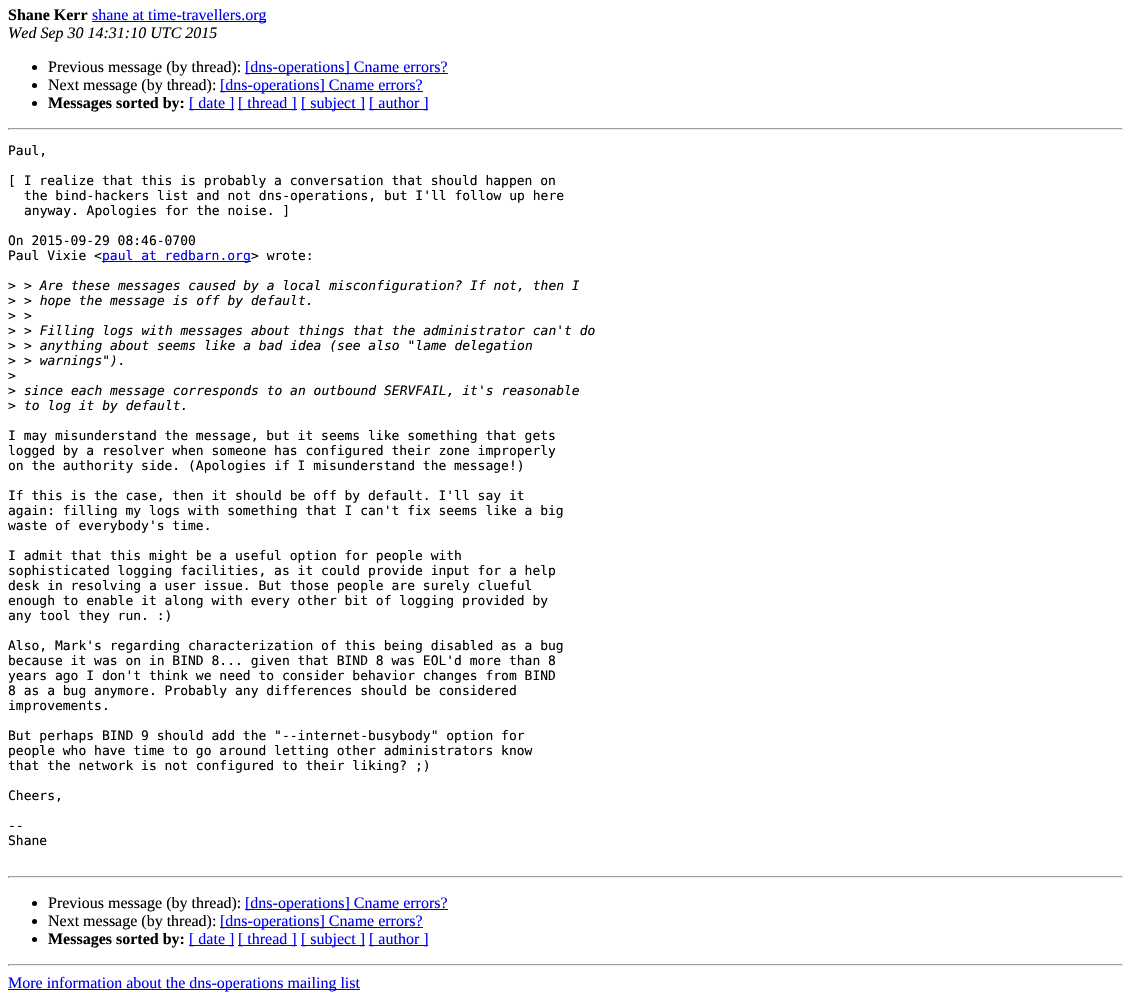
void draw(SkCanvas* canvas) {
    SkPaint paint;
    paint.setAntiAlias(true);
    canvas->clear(0xFFFFFFFF);
    SkFont font1(fontMgr->matchFamilyStyle("Liberation Serif", SkFontStyle::Bold()), 16);
    font1.setSubpixel(true);
    paint.setColor(0xFF000000);
    canvas->drawString("Shane Kerr", 8, 20, font1, paint);
    paint.setColor(0xFF0000EE);
    canvas->drawRect(SkRect::MakeXYWH(92, 21, 174, 1), paint);
    SkFont font2(fontMgr->matchFamilyStyle("Liberation Serif", SkFontStyle::Normal()), 16);
    font2.setSubpixel(true);
    canvas->drawString("shane at time-travellers.org", 92, 20, font2, paint);
    SkFont font3(fontMgr->matchFamilyStyle("Liberation Serif", SkFontStyle::Italic()), 16);
    font3.setSubpixel(true);
    paint.setColor(0xFF000000);
    canvas->drawString("Wed Sep 30 14:31:10 UTC 2015", 8, 38, font3, paint);
    canvas->drawCircle(34.5f, 67.5f, 2.5f, paint);
    canvas->drawString("Previous message (by thread):", 48, 72, font2, paint);
    paint.setColor(0xFF0000EE);
    canvas->drawRect(SkRect::MakeXYWH(245, 73, 203, 1), paint);
    canvas->drawString("[dns-operations] Cname errors?", 245, 72, font2, paint);
    paint.setColor(0xFF000000);
    canvas->drawCircle(34.5f, 85.5f, 2.5f, paint);
    canvas->drawString("Next message (by thread):", 48, 90, font2, paint);
    paint.setColor(0xFF0000EE);
    canvas->drawRect(SkRect::MakeXYWH(220, 91, 203, 1), paint);
    canvas->drawString("[dns-operations] Cname errors?", 220, 90, font2, paint);
    paint.setColor(0xFF000000);
    canvas->drawCircle(34.5f, 103.5f, 2.5f, paint);
    canvas->drawString("Messages sorted by:", 48, 108, font1, paint);
    paint.setColor(0xFF0000EE);
    canvas->drawRect(SkRect::MakeXYWH(189, 109, 45, 1), paint);
    canvas->drawString("[ date ]", 189, 108, font2, paint);
    canvas->drawRect(SkRect::MakeXYWH(238, 109, 59, 1), paint);
    canvas->drawString("[ thread ]", 238, 108, font2, paint);
    canvas->drawRect(SkRect::MakeXYWH(301, 109, 64, 1), paint);
    canvas->drawString("[ subject ]", 301, 108, font2, paint);
    canvas->drawRect(SkRect::MakeXYWH(369, 109, 59, 1), paint);
    canvas->drawString("[ author ]", 369, 108, font2, paint);
    paint.setColor(0xFF9F9F9F);
    canvas->drawRect(SkRect::MakeXYWH(8, 128, 1115, 1), paint);
    paint.setColor(0xFFEEEEEE);
    canvas->drawRect(SkRect::MakeXYWH(1122, 128, 1, 2), paint);
    canvas->drawRect(SkRect::MakeXYWH(8, 129, 1115, 1), paint);
    paint.setColor(0xFF9F9F9F);
    canvas->drawRect(SkRect::MakeXYWH(8, 128, 1, 2), paint);
    SkFont font4(fontMgr->matchFamilyStyle("DejaVu Sans Mono", SkFontStyle::Normal()), 13);
    font4.setSubpixel(true);
    paint.setColor(0xFF000000);
    canvas->drawString("Paul,", 8, 155, font4, paint);
    canvas->drawString("[ I realize that this is probably a conversation that should happen on", 8, 185, font4, paint);
    canvas->drawString("the bind-hackers list and not dns-operations, but I'll follow up here", 24, 200, font4, paint);
    canvas->drawString("anyway. Apologies for the noise. ]", 24, 215, font4, paint);
    canvas->drawString("On 2015-09-29 08:46-0700", 8, 245, font4, paint);
    canvas->drawString("Paul Vixie <", 8, 260, font4, paint);
    paint.setColor(0xFF0000EE);
    canvas->drawRect(SkRect::MakeXYWH(102, 261, 149, 1), paint);
    canvas->drawString("paul at redbarn.org", 102, 260, font4, paint);
    paint.setColor(0xFF000000);
    canvas->drawString("> wrote:", 251, 260, font4, paint);
    canvas->drawString(">", 8, 290, font4, paint);
    SkFont font5(fontMgr->matchFamilyStyle("DejaVu Sans Mono", SkFontStyle::Italic()), 13);
    font5.setSubpixel(true);
    canvas->drawString("> Are these messages caused by a local misconfiguration? If not, then I", 24, 290, font5, paint);
    canvas->drawString(">", 8, 305, font4, paint);
    canvas->drawString("> hope the message is off by default.", 24, 305, font5, paint);
    canvas->drawString(">", 8, 320, font4, paint);
    canvas->drawString(">", 24, 320, font5, paint);
    canvas->drawString(">", 8, 335, font4, paint);
    canvas->drawString("> Filling logs with messages about things that the administrator can't do", 24, 335, font5, paint);
    canvas->drawString(">", 8, 350, font4, paint);
    canvas->drawString("> anything about seems like a bad idea (see also \"lame delegation", 24, 350, font5, paint);
    canvas->drawString(">", 8, 365, font4, paint);
    canvas->drawString("> warnings\").", 24, 365, font5, paint);
    canvas->drawString(">", 8, 380, font4, paint);
    canvas->drawString(">", 8, 395, font4, paint);
    canvas->drawString("since each message corresponds to an outbound SERVFAIL, it's reasonable", 24, 395, font5, paint);
    canvas->drawString(">", 8, 410, font4, paint);
    canvas->drawString("to log it by default.", 24, 410, font5, paint);
    canvas->drawString("I may misunderstand the message, but it seems like something that gets", 8, 440, font4, paint);
    canvas->drawString("logged by a resolver when someone has configured their zone improperly", 8, 455, font4, paint);
    canvas->drawString("on the authority side. (Apologies if I misunderstand the message!)", 8, 470, font4, paint);
    canvas->drawString("If this is the case, then it should be off by default. I'll say it", 8, 500, font4, paint);
    canvas->drawString("again: filling my logs with something that I can't fix seems like a big", 8, 515, font4, paint);
    canvas->drawString("waste of everybody's time.", 8, 530, font4, paint);
    canvas->drawString("I admit that this might be a useful option for people with", 8, 560, font4, paint);
    canvas->drawString("sophisticated logging facilities, as it could provide input for a help", 8, 575, font4, paint);
    canvas->drawString("desk in resolving a user issue. But those people are surely clueful", 8, 590, font4, paint);
    canvas->drawString("enough to enable it along with every other bit of logging provided by", 8, 605, font4, paint);
    canvas->drawString("any tool they run. :)", 8, 620, font4, paint);
    canvas->drawString("Also, Mark's regarding characterization of this being disabled as a bug", 8, 650, font4, paint);
    canvas->drawString("because it was on in BIND 8... given that BIND 8 was EOL'd more than 8", 8, 665, font4, paint);
    canvas->drawString("years ago I don't think we need to consider behavior changes from BIND", 8, 680, font4, paint);
    canvas->drawString("8 as a bug anymore. Probably any differences should be considered", 8, 695, font4, paint);
    canvas->drawString("improvements.", 8, 710, font4, paint);
    canvas->drawString("But perhaps BIND 9 should add the \"--internet-busybody\" option for", 8, 740, font4, paint);
    canvas->drawString("people who have time to go around letting other administrators know", 8, 755, font4, paint);
    canvas->drawString("that the network is not configured to their liking? ;)", 8, 770, font4, paint);
    canvas->drawString("Cheers,", 8, 800, font4, paint);
    canvas->drawString("--", 8, 830, font4, paint);
    canvas->drawString("Shane", 8, 845, font4, paint);
    paint.setColor(0xFF9F9F9F);
    canvas->drawRect(SkRect::MakeXYWH(8, 876, 1115, 1), paint);
    paint.setColor(0xFFEEEEEE);
    canvas->drawRect(SkRect::MakeXYWH(1122, 876, 1, 2), paint);
    canvas->drawRect(SkRect::MakeXYWH(8, 877, 1115, 1), paint);
    paint.setColor(0xFF9F9F9F);
    canvas->drawRect(SkRect::MakeXYWH(8, 876, 1, 2), paint);
    paint.setColor(0xFF000000);
    canvas->drawCircle(34.5f, 903.5f, 2.5f, paint);
    canvas->drawString("Previous message (by thread):", 48, 908, font2, paint);
    paint.setColor(0xFF0000EE);
    canvas->drawRect(SkRect::MakeXYWH(245, 909, 203, 1), paint);
    canvas->drawString("[dns-operations] Cname errors?", 245, 908, font2, paint);
    paint.setColor(0xFF000000);
    canvas->drawCircle(34.5f, 921.5f, 2.5f, paint);
    canvas->drawString("Next message (by thread):", 48, 926, font2, paint);
    paint.setColor(0xFF0000EE);
    canvas->drawRect(SkRect::MakeXYWH(220, 927, 203, 1), paint);
    canvas->drawString("[dns-operations] Cname errors?", 220, 926, font2, paint);
    paint.setColor(0xFF000000);
    canvas->drawCircle(34.5f, 939.5f, 2.5f, paint);
    canvas->drawString("Messages sorted by:", 48, 944, font1, paint);
    paint.setColor(0xFF0000EE);
    canvas->drawRect(SkRect::MakeXYWH(189, 945, 45, 1), paint);
    canvas->drawString("[ date ]", 189, 944, font2, paint);
    canvas->drawRect(SkRect::MakeXYWH(238, 945, 59, 1), paint);
    canvas->drawString("[ thread ]", 238, 944, font2, paint);
    canvas->drawRect(SkRect::MakeXYWH(301, 945, 64, 1), paint);
    canvas->drawString("[ subject ]", 301, 944, font2, paint);
    canvas->drawRect(SkRect::MakeXYWH(369, 945, 59, 1), paint);
    canvas->drawString("[ author ]", 369, 944, font2, paint);
    paint.setColor(0xFF9F9F9F);
    canvas->drawRect(SkRect::MakeXYWH(8, 964, 1115, 1), paint);
    paint.setColor(0xFFEEEEEE);
    canvas->drawRect(SkRect::MakeXYWH(1122, 964, 1, 2), paint);
    canvas->drawRect(SkRect::MakeXYWH(8, 965, 1115, 1), paint);
    paint.setColor(0xFF9F9F9F);
    canvas->drawRect(SkRect::MakeXYWH(8, 964, 1, 2), paint);
    paint.setColor(0xFF0000EE);
    canvas->drawRect(SkRect::MakeXYWH(8, 989, 352, 1), paint);
    canvas->drawString("More information about the dns-operations mailing list", 8, 988, font2, paint);
}
